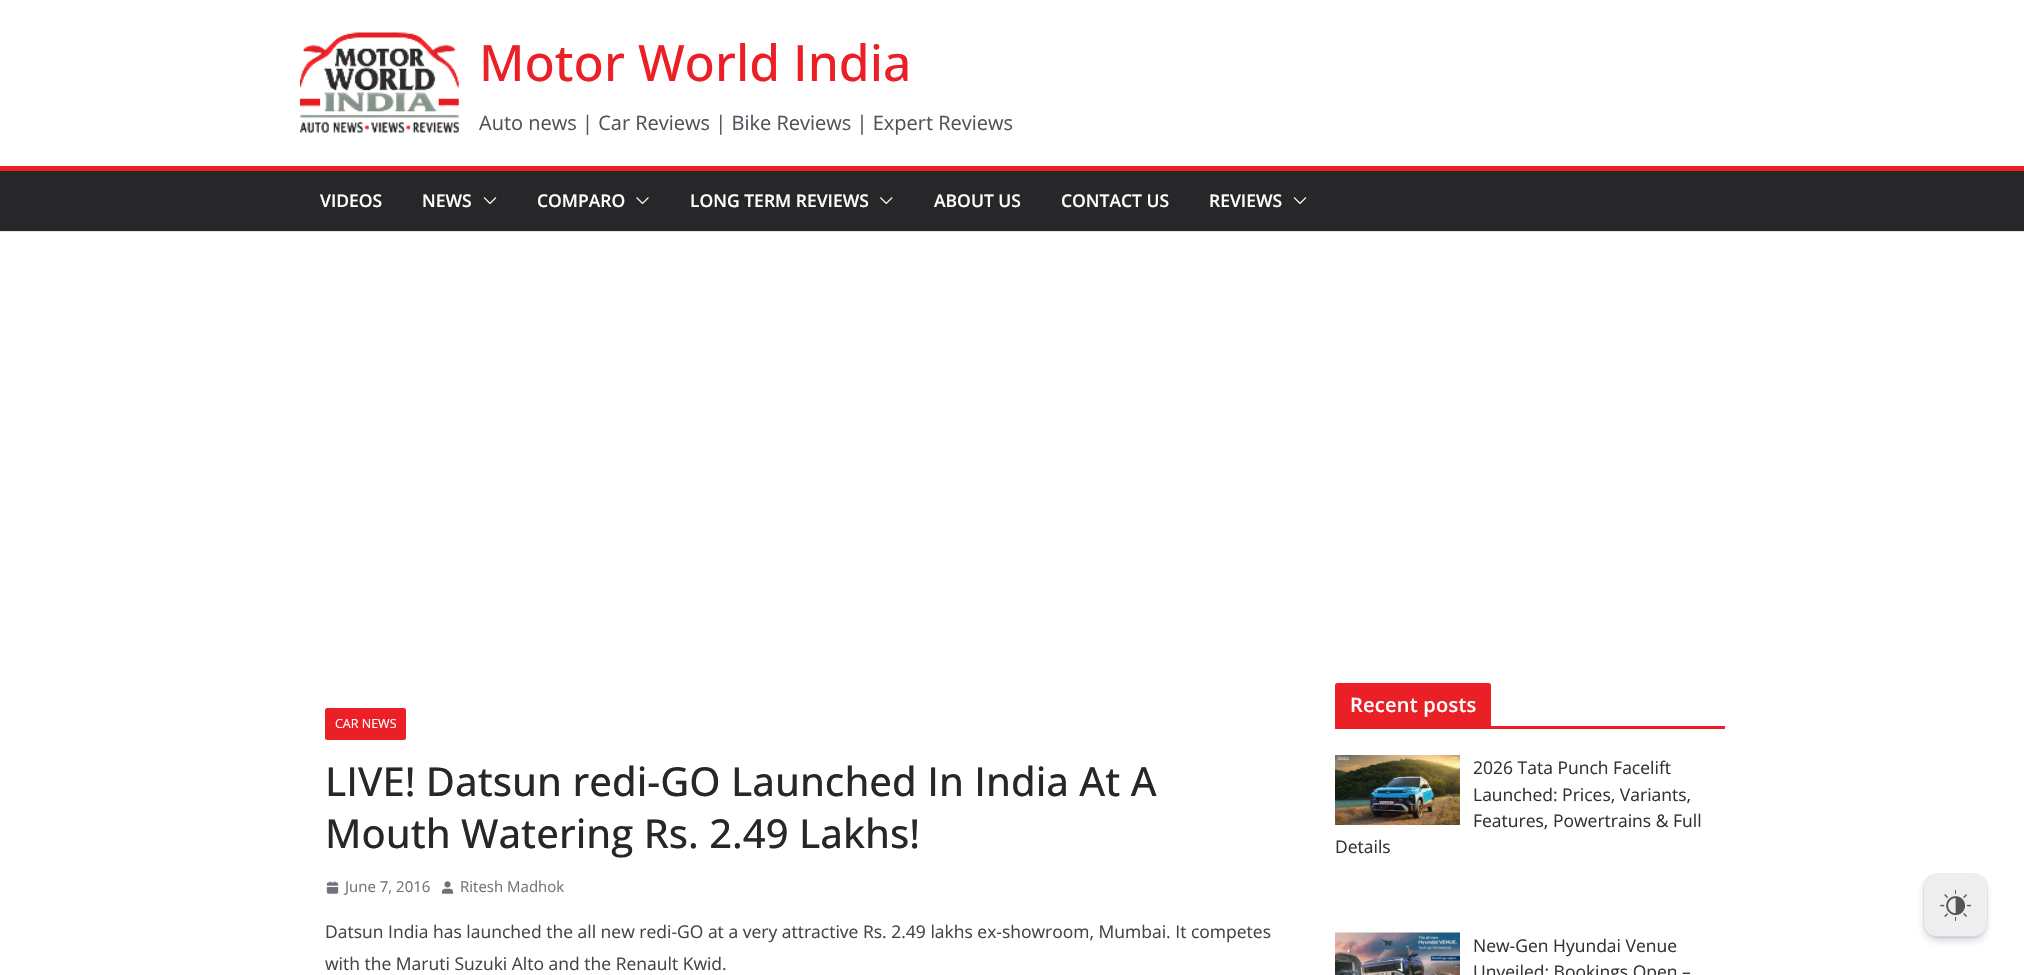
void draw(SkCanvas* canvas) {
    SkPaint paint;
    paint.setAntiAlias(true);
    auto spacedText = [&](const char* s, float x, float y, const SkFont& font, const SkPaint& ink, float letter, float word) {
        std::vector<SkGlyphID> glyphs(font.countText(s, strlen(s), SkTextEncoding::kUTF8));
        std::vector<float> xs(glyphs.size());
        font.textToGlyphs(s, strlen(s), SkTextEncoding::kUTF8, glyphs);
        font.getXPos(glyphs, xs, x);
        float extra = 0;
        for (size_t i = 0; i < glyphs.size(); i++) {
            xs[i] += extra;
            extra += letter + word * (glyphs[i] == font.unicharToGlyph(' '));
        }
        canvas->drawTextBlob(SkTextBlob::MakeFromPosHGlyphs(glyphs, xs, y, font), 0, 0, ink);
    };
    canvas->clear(0xFFFFFFFF);
    paint.setColor(0xFFE4E4E7);
    canvas->drawRect(SkRect::MakeXYWH(0, 231, 2024, 1), paint);
    canvas->drawImageRect(SkImages::DeferredFromEncodedData(SkData::MakeFromFileName("img1.png")), SkRect::MakeXYWH(300, 32, 159, 101), SkSamplingOptions());
    SkFont font1(fontMgr->matchFamilyStyle("Open Sans", SkFontStyle(500, SkFontStyle::kNormal_Width, SkFontStyle::kUpright_Slant)), 50);
    font1.setSubpixel(true);
    paint.setColor(0xFFEA2026);
    canvas->drawString("Motor World India", 479, 81, font1, paint);
    SkFont font2(fontMgr->matchFamilyStyle("Open Sans", SkFontStyle::Normal()), 20);
    font2.setSubpixel(true);
    paint.setColor(0xFF52525B);
    canvas->drawString("Auto news | Car Reviews | Bike Reviews | Expert Reviews", 479, 130, font2, paint);
    paint.setColor(0xFF27272A);
    canvas->drawRect(SkRect::MakeXYWH(0, 171, 2024, 60), paint);
    paint.setColor(0xFFEA2026);
    canvas->drawRect(SkRect::MakeXYWH(0, 166, 2024, 5), paint);
    SkFont font3(fontMgr->matchFamilyStyle("Open Sans", SkFontStyle(600, SkFontStyle::kNormal_Width, SkFontStyle::kUpright_Slant)), 17.5f);
    font3.setSubpixel(true);
    paint.setColor(0xFFFFFFFF);
    canvas->drawString("VIDEOS", 320, 207, font3, paint);
    canvas->drawString("NEWS", 422, 207, font3, paint);
    canvas->drawImageRect(SkImages::DeferredFromEncodedData(SkData::MakeFromFileName("img2.png")), SkRect::MakeXYWH(483, 197, 14, 7), SkSamplingOptions());
    canvas->drawString("COMPARO", 537, 207, font3, paint);
    canvas->drawImageRect(SkImages::DeferredFromEncodedData(SkData::MakeFromFileName("img3.png")), SkRect::MakeXYWH(636, 197, 13, 7), SkSamplingOptions());
    canvas->drawString("LONG TERM REVIEWS", 690, 207, font3, paint);
    canvas->drawImageRect(SkImages::DeferredFromEncodedData(SkData::MakeFromFileName("img4.png")), SkRect::MakeXYWH(880, 197, 13, 7), SkSamplingOptions());
    canvas->drawString("ABOUT US", 934, 207, font3, paint);
    canvas->drawString("CONTACT US", 1061, 207, font3, paint);
    canvas->drawString("REVIEWS", 1209, 207, font3, paint);
    canvas->drawImageRect(SkImages::DeferredFromEncodedData(SkData::MakeFromFileName("img2.png")), SkRect::MakeXYWH(1293, 197, 14, 7), SkSamplingOptions());
    paint.setColor(0xFFEA2026);
    canvas->drawRoundRect(SkRect::MakeXYWH(325, 708, 81, 32), 2.5f, 2.5f, paint);
    SkFont font4(fontMgr->matchFamilyStyle("Open Sans", SkFontStyle::Normal()), 12.5f);
    font4.setSubpixel(true);
    paint.setColor(0xFFFFFFFF);
    canvas->drawString("CAR NEWS", 335, 728, font4, paint);
    SkFont font5(fontMgr->matchFamilyStyle("Open Sans", SkFontStyle(500, SkFontStyle::kNormal_Width, SkFontStyle::kUpright_Slant)), 40);
    font5.setSubpixel(true);
    paint.setColor(0xFF27272A);
    canvas->drawString("LIVE! Datsun redi-GO Launched In India At A", 325, 796, font5, paint);
    canvas->drawString("Mouth Watering Rs. 2.49 Lakhs!", 325, 848, font5, paint);
    canvas->drawImageRect(SkImages::DeferredFromEncodedData(SkData::MakeFromFileName("img5.png")), SkRect::MakeXYWH(326, 881, 13, 13), SkSamplingOptions());
    SkFont font6(fontMgr->matchFamilyStyle("Open Sans", SkFontStyle::Normal()), 15);
    font6.setSubpixel(true);
    paint.setColor(0xFF71717A);
    canvas->drawString("June 7, 2016", 345, 892, font6, paint);
    canvas->drawImageRect(SkImages::DeferredFromEncodedData(SkData::MakeFromFileName("img6.png")), SkRect::MakeXYWH(441, 881, 13, 13), SkSamplingOptions());
    canvas->drawString("Ritesh Madhok", 460, 892, font6, paint);
    SkFont font7(fontMgr->matchFamilyStyle("Open Sans", SkFontStyle::Normal()), 17.5f);
    font7.setSubpixel(true);
    paint.setColor(0xFF444444);
    canvas->drawString("Datsun India has launched the all new redi-GO at a very attractive Rs. 2.49 lakhs ex-showroom, Mumbai. It competes", 325, 938, font7, paint);
    canvas->drawString("with the Maruti Suzuki Alto and the Renault Kwid.", 325, 970, font7, paint);
    paint.setColor(0xFFEA2026);
    canvas->drawRect(SkRect::MakeXYWH(1335, 726, 390, 3), paint);
    canvas->drawPath(SkPathBuilder().moveTo(1337.5f, 683).lineTo(1488.5f, 683).cubicTo(1490, 683, 1491, 684, 1491, 685.5f).lineTo(1491, 726).lineTo(1335, 726).lineTo(1335, 685.5f).cubicTo(1335, 684, 1336, 683, 1337.5f, 683).close().detach(), paint);
    SkFont font8(fontMgr->matchFamilyStyle("Open Sans", SkFontStyle(600, SkFontStyle::kNormal_Width, SkFontStyle::kUpright_Slant)), 20);
    font8.setSubpixel(true);
    paint.setColor(0xFFFFFFFF);
    spacedText("Recent posts", 1350, 712, font8, paint, 0.25f, 0);
    canvas->drawImageRect(SkImages::DeferredFromEncodedData(SkData::MakeFromFileName("img7.png")), SkRect::MakeXYWH(1335, 755, 125, 70), SkSamplingOptions());
    paint.setColor(0xFF333333);
    canvas->drawString("2026 Tata Punch Facelift", 1473, 774, font7, paint);
    canvas->drawString("Launched: Prices, Variants,", 1473, 801, font7, paint);
    canvas->drawString("Features, Powertrains & Full", 1473, 827, font7, paint);
    canvas->drawString("Details", 1335, 853, font7, paint);
    canvas->drawImageRect(SkImages::DeferredFromEncodedData(SkData::MakeFromFileName("img8.png")), SkRect::MakeXYWH(1335, 932, 125, 43), SkSamplingOptions());
    canvas->drawString("New-Gen Hyundai Venue", 1473, 952, font7, paint);
    canvas->drawString("Unveiled; Bookings Open –", 1473, 978, font7, paint);
    paint.setStyle(SkPaint::kStroke_Style);
    paint.setStrokeWidth(1);
    paint.setColor(0xFFEBEDF0);
    canvas->drawRoundRect(SkRect::MakeXYWH(1923.5f, 873.5f, 64, 64), 13.5f, 13.5f, paint);
    paint.setStyle(SkPaint::kFill_Style);
    paint.setColor(0x40091E42);
    paint.setMaskFilter(SkMaskFilter::MakeBlur(kNormal_SkBlurStyle, 5));
    canvas->drawRoundRect(SkRect::MakeXYWH(1926, 881, 58, 58), 10, 10, paint);
    paint.setMaskFilter(nullptr);
    paint.setColor(0xFFEEEEEE);
    canvas->drawRoundRect(SkRect::MakeXYWH(1924, 874, 62, 62), 13, 13, paint);
    canvas->drawImageRect(SkImages::DeferredFromEncodedData(SkData::MakeFromFileName("img9.png")), SkRect::MakeXYWH(1940, 890, 31, 31), SkSamplingOptions());
}
